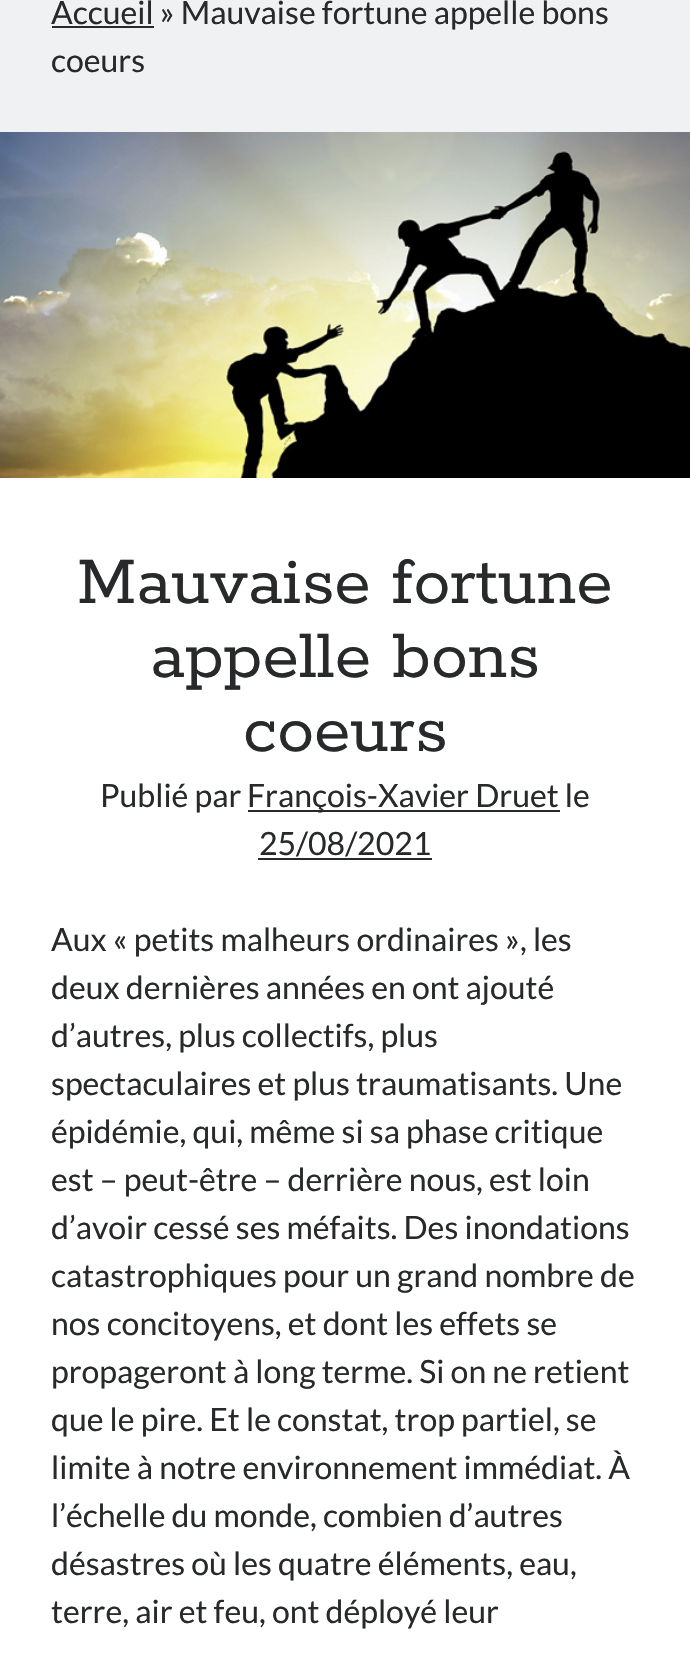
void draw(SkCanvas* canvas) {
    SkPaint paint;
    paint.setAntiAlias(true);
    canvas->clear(0xFFF0F1F2);
    paint.setColor(0xFF27292B);
    canvas->drawRect(SkRect::MakeXYWH(52, 26, 102, 2), paint);
    SkFont font1(fontMgr->matchFamilyStyle("Lato", SkFontStyle::Normal()), 32);
    font1.setSubpixel(true);
    canvas->drawString("Accueil » Mauvaise fortune appelle bons", 51, 24, font1, paint);
    canvas->drawString("coeurs", 51, 72, font1, paint);
    canvas->drawImageRect(SkImages::DeferredFromEncodedData(SkData::MakeFromFileName("img1.png")), SkRect::MakeXYWH(0, 132, 690, 346), SkSamplingOptions());
    paint.setColor(0xFFFFFFFF);
    canvas->drawRect(SkRect::MakeXYWH(0, 478, 690, 1177), paint);
    SkFont font2(fontMgr->matchFamilyStyle("Rokkitt", SkFontStyle::Normal()), 74);
    font2.setSubpixel(true);
    paint.setColor(0xFF27292B);
    canvas->drawString("Mauvaise fortune", 77, 603, font2, paint);
    canvas->drawString("appelle bons", 150, 677, font2, paint);
    canvas->drawString("coeurs", 243, 751, font2, paint);
    canvas->drawString("Publié par", 100, 807, font1, paint);
    canvas->drawRect(SkRect::MakeXYWH(248, 810, 312, 2), paint);
    canvas->drawString("François-Xavier Druet le", 247, 807, font1, paint);
    canvas->drawString("25/08/2021", 259, 855, font1, paint);
    canvas->drawRect(SkRect::MakeXYWH(258, 858, 174, 2), paint);
    canvas->drawString("Aux « petits malheurs ordinaires », les", 51, 951, font1, paint);
    canvas->drawString("deux dernières années en ont ajouté", 51, 999, font1, paint);
    canvas->drawString("d’autres, plus collectifs, plus", 51, 1047, font1, paint);
    canvas->drawString("spectaculaires et plus traumatisants. Une", 51, 1095, font1, paint);
    canvas->drawString("épidémie, qui, même si sa phase critique", 51, 1143, font1, paint);
    canvas->drawString("est – peut-être – derrière nous, est loin", 51, 1191, font1, paint);
    canvas->drawString("d’avoir cessé ses méfaits. Des inondations", 51, 1239, font1, paint);
    canvas->drawString("catastrophiques pour un grand nombre de", 51, 1287, font1, paint);
    canvas->drawString("nos concitoyens, et dont les effets se", 51, 1335, font1, paint);
    canvas->drawString("propageront à long terme. Si on ne retient", 51, 1383, font1, paint);
    canvas->drawString("que le pire. Et le constat, trop partiel, se", 51, 1431, font1, paint);
    canvas->drawString("limite à notre environnement immédiat. À", 51, 1479, font1, paint);
    canvas->drawString("l’échelle du monde, combien d’autres", 51, 1527, font1, paint);
    canvas->drawString("désastres où les quatre éléments, eau,", 51, 1575, font1, paint);
    canvas->drawString("terre, air et feu, ont déployé leur", 51, 1623, font1, paint);
}
